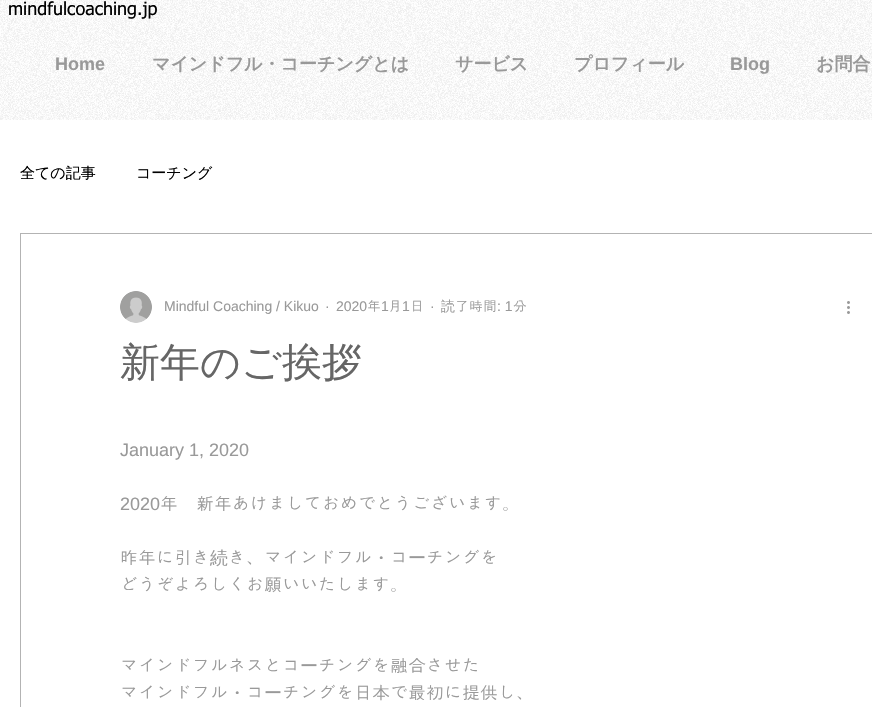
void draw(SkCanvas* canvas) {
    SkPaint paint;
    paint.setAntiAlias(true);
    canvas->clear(0xFFFFFFFF);
    canvas->drawImageRect(SkImages::DeferredFromEncodedData(SkData::MakeFromFileName("img1.png")), SkRect::MakeXYWH(0, 0, 872, 120), SkSamplingOptions());
    SkFont font1(fontMgr->matchFamilyStyle("tahoma", SkFontStyle::Normal()), 18);
    font1.setSubpixel(true);
    paint.setColor(0xFF000000);
    canvas->drawString("mindfulcoaching.jp", 8, 15, font1, paint);
    SkFont font2(fontMgr->matchFamilyStyle("Liberation Sans", SkFontStyle::Bold()), 18);
    font2.setSubpixel(true);
    paint.setColor(0xFF999999);
    canvas->drawString("Home", 55, 70, font2, paint);
    SkFont font3(fontMgr->matchFamilyStyle("WenQuanYi Zen Hei", SkFontStyle::Bold()), 18);
    font3.setSubpixel(true);
    canvas->drawString("マインドフル・コーチングとは", 152, 70, font3, paint);
    canvas->drawString("サービス", 455, 70, font3, paint);
    canvas->drawString("プロフィール", 574, 70, font3, paint);
    canvas->drawString("Blog", 730, 70, font2, paint);
    canvas->drawString("お問合", 816, 70, font3, paint);
    SkFont font4(fontMgr->matchFamilyStyle("WenQuanYi Zen Hei", SkFontStyle(500, SkFontStyle::kNormal_Width, SkFontStyle::kUpright_Slant)), 15);
    font4.setSubpixel(true);
    paint.setColor(0xFF000000);
    canvas->drawString("全ての記事", 20, 178, font4, paint);
    canvas->drawString("コーチング", 136, 178, font4, paint);
    paint.setStyle(SkPaint::kStroke_Style);
    paint.setStrokeWidth(1);
    paint.setColor(0xFFB3B3B3);
    canvas->drawRect(SkRect::MakeXYWH(20.5f, 233.5f, 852, 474), paint);
    canvas->drawImageRect(SkImages::DeferredFromEncodedData(SkData::MakeFromFileName("img2.png")), SkRect::MakeXYWH(120, 291, 32, 32), SkSamplingOptions());
    SkFont font5(fontMgr->matchFamilyStyle("Liberation Sans", SkFontStyle::Normal()), 14);
    font5.setSubpixel(true);
    paint.setStyle(SkPaint::kFill_Style);
    paint.setColor(0xFF999999);
    canvas->drawString("Mindful Coaching / Kikuo", 164, 311, font5, paint);
    canvas->drawString("·", 325, 311, font5, paint);
    canvas->drawString("2020", 336, 311, font5, paint);
    SkFont font6(fontMgr->matchFamilyStyle("Dotum", SkFontStyle::Normal()), 14);
    font6.setSubpixel(true);
    canvas->drawString("年", 367, 311, font6, paint);
    canvas->drawString("1", 381, 311, font5, paint);
    canvas->drawString("月", 388, 311, font6, paint);
    canvas->drawString("1", 402, 311, font5, paint);
    canvas->drawString("日", 410, 311, font6, paint);
    canvas->drawString("·", 430, 311, font5, paint);
    SkFont font7(fontMgr->matchFamilyStyle("WenQuanYi Zen Hei", SkFontStyle(500, SkFontStyle::kNormal_Width, SkFontStyle::kUpright_Slant)), 14);
    font7.setSubpixel(true);
    canvas->drawString("読", 441, 311, font7, paint);
    canvas->drawString("了時間", 455, 311, font6, paint);
    canvas->drawString(": 1", 497, 311, font5, paint);
    canvas->drawString("分", 513, 311, font6, paint);
    canvas->drawImageRect(SkImages::DeferredFromEncodedData(SkData::MakeFromFileName("img3.png")), SkRect::MakeXYWH(847, 301, 3, 13), SkSamplingOptions());
    SkFont font8(fontMgr->matchFamilyStyle("WenQuanYi Zen Hei", SkFontStyle(500, SkFontStyle::kNormal_Width, SkFontStyle::kUpright_Slant)), 40);
    font8.setSubpixel(true);
    paint.setColor(0xFF666666);
    canvas->drawString("新年のご挨拶", 120, 376, font8, paint);
    SkFont font9(fontMgr->matchFamilyStyle("Liberation Sans", SkFontStyle::Normal()), 18);
    font9.setSubpixel(true);
    paint.setColor(0xFF999999);
    canvas->drawString("January 1, 2020", 120, 456, font9, paint);
    canvas->drawString("2020", 120, 510, font9, paint);
    SkFont font10(fontMgr->matchFamilyStyle("Dotum", SkFontStyle::Normal()), 18);
    font10.setSubpixel(true);
    canvas->drawString("年　新年あけましておめでとうございます。", 160, 510, font10, paint);
    canvas->drawString("昨年に引き", 120, 564, font10, paint);
    SkFont font11(fontMgr->matchFamilyStyle("WenQuanYi Zen Hei", SkFontStyle(500, SkFontStyle::kNormal_Width, SkFontStyle::kUpright_Slant)), 18);
    font11.setSubpixel(true);
    canvas->drawString("続", 210, 564, font11, paint);
    canvas->drawString("き、マインドフル", 228, 564, font10, paint);
    canvas->drawString("・", 372, 564, font11, paint);
    canvas->drawString("コ", 390, 564, font10, paint);
    canvas->drawString("ー", 408, 564, font11, paint);
    canvas->drawString("チングを", 426, 564, font10, paint);
    canvas->drawString("どうぞよろしくお願いいたします。", 120, 591, font10, paint);
    canvas->drawString("マインドフルネスとコ", 120, 672, font10, paint);
    canvas->drawString("ー", 300, 672, font11, paint);
    canvas->drawString("チングを融合させた", 318, 672, font10, paint);
    canvas->drawString("マインドフル", 120, 699, font10, paint);
    canvas->drawString("・", 228, 699, font11, paint);
    canvas->drawString("コ", 246, 699, font10, paint);
    canvas->drawString("ー", 264, 699, font11, paint);
    canvas->drawString("チングを日本で最初に提供し、", 282, 699, font10, paint);
}
